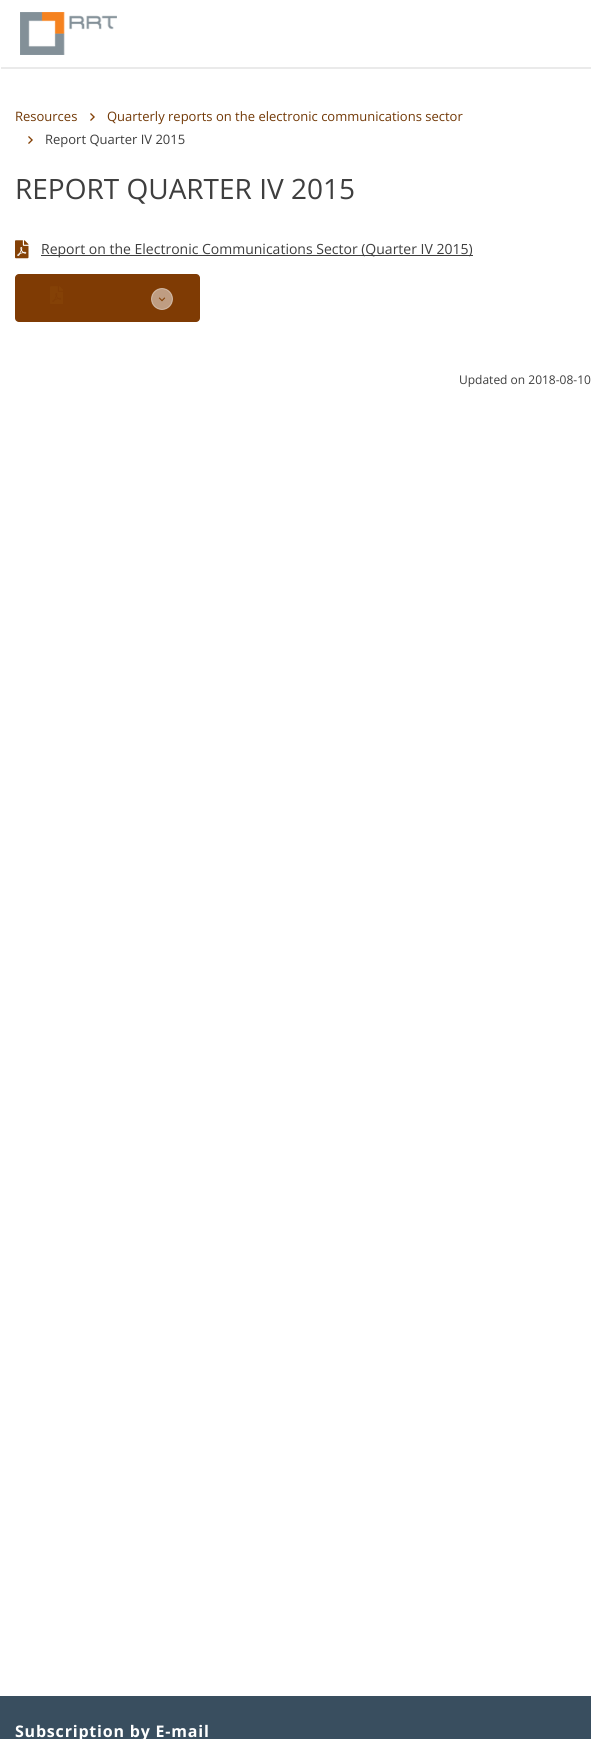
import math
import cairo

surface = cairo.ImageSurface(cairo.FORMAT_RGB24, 591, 1739)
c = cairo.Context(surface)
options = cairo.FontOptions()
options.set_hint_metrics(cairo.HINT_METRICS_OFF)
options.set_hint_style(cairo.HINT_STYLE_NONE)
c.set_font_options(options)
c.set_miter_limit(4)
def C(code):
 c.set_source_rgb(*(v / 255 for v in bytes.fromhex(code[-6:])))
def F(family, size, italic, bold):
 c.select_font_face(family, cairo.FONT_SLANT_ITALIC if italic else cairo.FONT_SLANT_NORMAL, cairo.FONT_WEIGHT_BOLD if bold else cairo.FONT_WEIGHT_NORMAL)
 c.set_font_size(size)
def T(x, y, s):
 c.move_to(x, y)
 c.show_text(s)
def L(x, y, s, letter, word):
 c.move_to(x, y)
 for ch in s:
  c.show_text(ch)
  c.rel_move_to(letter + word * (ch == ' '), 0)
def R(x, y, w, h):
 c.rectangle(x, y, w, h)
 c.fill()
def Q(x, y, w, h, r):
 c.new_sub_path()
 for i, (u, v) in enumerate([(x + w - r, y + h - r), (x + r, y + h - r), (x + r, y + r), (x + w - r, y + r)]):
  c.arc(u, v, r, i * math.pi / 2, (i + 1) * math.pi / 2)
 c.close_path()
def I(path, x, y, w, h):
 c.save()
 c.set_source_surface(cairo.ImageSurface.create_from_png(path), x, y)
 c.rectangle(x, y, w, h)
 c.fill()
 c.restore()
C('394e5f')
c.paint()
C('ffffff')
R(0,0,591,1696)
C('eaeaea')
c.new_path()
c.move_to(1,67)
c.line_to(1,69)
c.line_to(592,69)
c.line_to(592,2)
c.line_to(591,2)
c.line_to(591,67)
c.close_path()
c.fill()
I('1.png',20,12,97,43)
F('Open Sans',13,0,0)
C('723907')
T(15,121,'Resources')
I('2.png',90,113,5,8)
T(107,121,'Quarterly reports on the electronic communications sector')
I('2.png',28,136,5,8)
C('3e3e3e')
T(45,144,'Report Quarter IV 2015')
F('Open Sans',28,0,0)
T(15,199,'REPORT QUARTER IV 2015')
I('3.png',15,240,14,19)
R(41,255,432,1)
F('Open Sans',14,0,0)
T(41,254,'Report on the Electronic Communications Sector (Quarter IV 2015)')
C('7f3b04')
Q(15,274,185,48,4)
c.fill()
I('4.png',50,286,13,18)
I('5.png',151,288,22,22)
F('Open Sans',12,0,0)
C('3e3e3e')
T(459,384,'Updated on 2018-08-10')
F('Open Sans',16,0,1)
C('ffffff')
L(15,1737,'Subscription by E-mail',.8,0)
surface.write_to_png('o.png')
